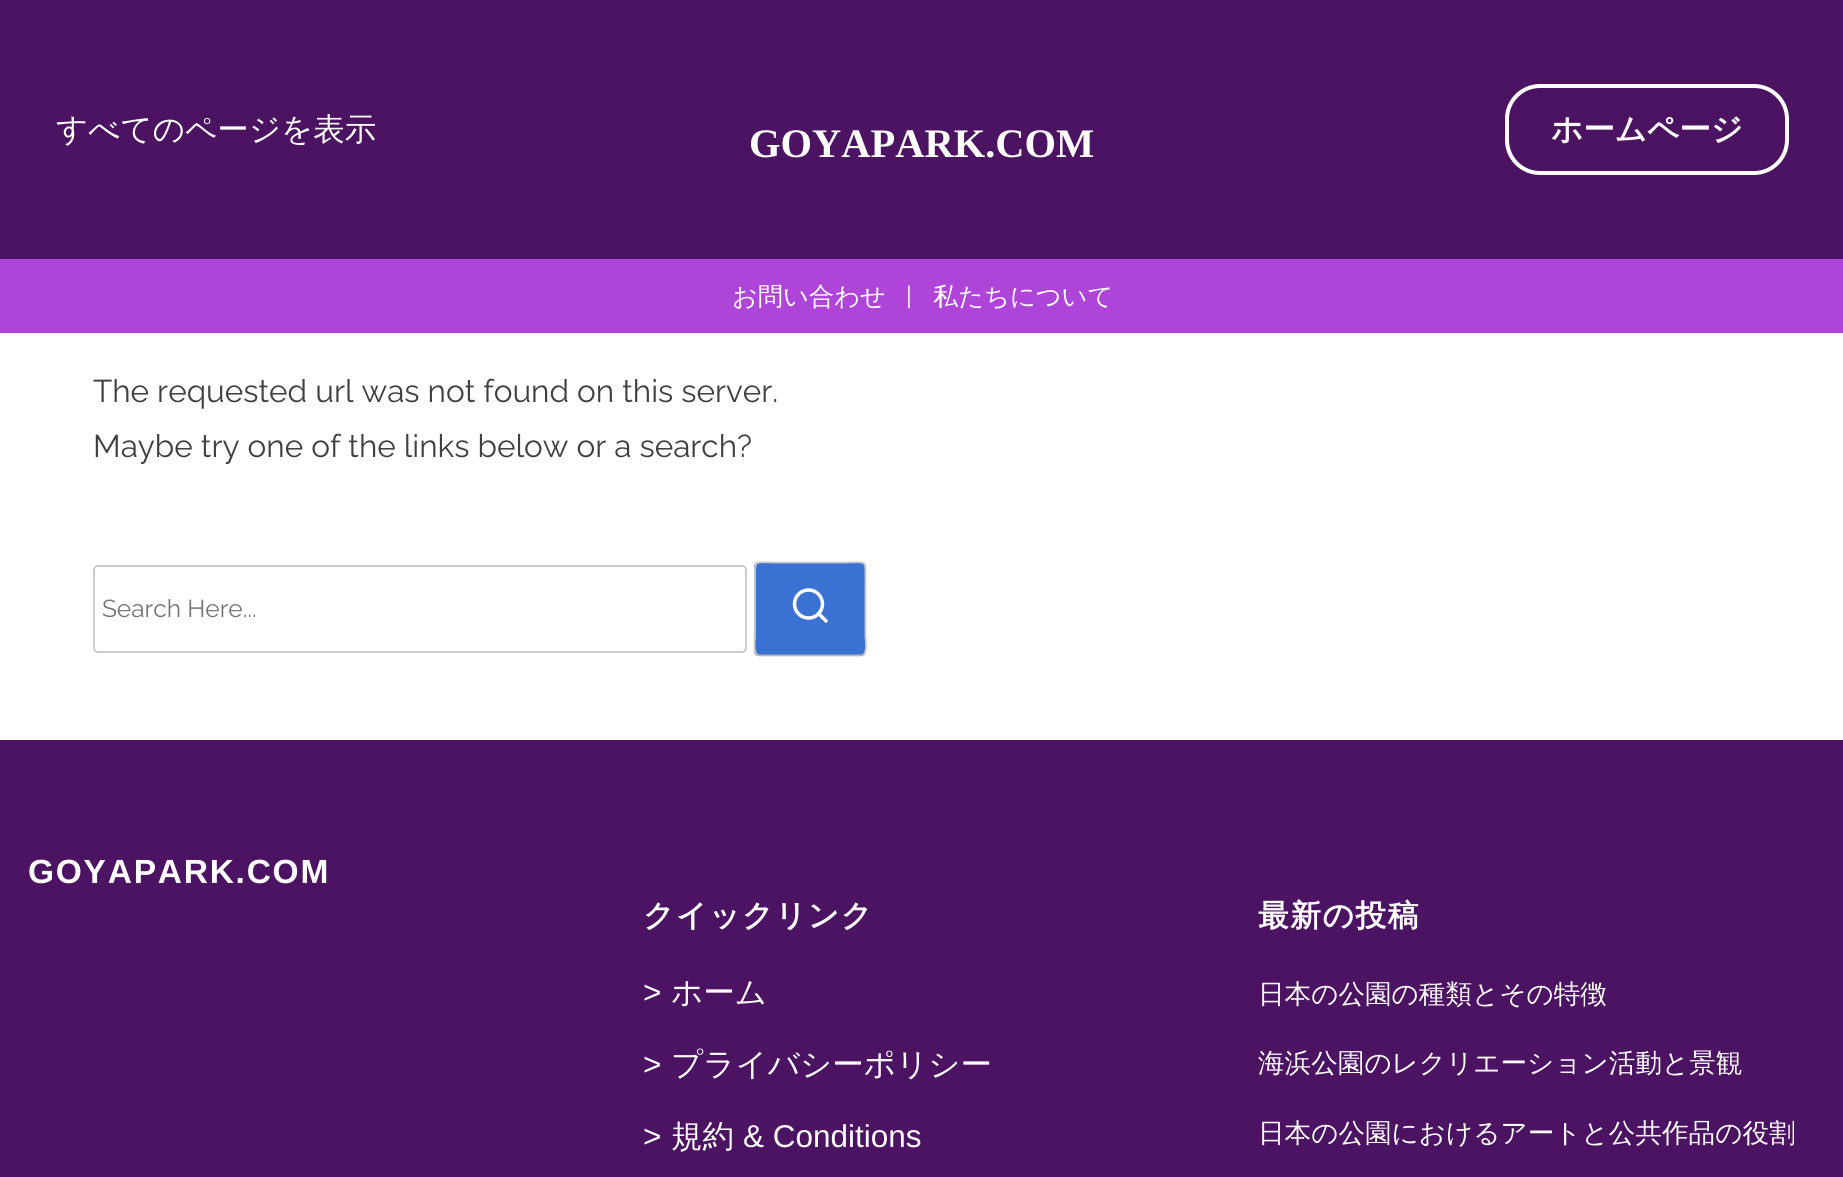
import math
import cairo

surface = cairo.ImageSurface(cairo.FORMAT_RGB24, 1843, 1177)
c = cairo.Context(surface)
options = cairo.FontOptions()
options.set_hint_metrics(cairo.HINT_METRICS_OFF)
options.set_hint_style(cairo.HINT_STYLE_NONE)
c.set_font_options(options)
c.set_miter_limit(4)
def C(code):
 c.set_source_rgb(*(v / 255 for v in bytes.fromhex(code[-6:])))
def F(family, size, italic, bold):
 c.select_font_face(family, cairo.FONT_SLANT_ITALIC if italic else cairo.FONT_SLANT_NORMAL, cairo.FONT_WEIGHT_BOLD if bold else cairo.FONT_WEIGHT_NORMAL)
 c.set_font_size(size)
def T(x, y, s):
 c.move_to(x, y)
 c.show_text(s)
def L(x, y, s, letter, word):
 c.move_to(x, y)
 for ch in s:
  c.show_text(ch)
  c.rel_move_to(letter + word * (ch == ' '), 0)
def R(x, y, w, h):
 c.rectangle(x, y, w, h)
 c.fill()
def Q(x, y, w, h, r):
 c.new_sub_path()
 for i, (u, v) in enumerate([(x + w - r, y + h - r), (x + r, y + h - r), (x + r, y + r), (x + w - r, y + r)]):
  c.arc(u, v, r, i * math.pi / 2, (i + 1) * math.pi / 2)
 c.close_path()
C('ffffff')
c.paint()
C('4b1361')
R(0,0,1843,259)
C('ae44d8')
R(0,259,1843,74)
F('WenQuanYi Zen Hei Medium',31.5,0,0)
C('ffffff')
T(56,140,'すべてのページを表示')
F('Liberation Serif',40.5,0,1)
T(749,157,'GOYAPARK.COM')
Q(1507,86,280,87,33)
c.set_line_width(4)
c.stroke()
F('WenQuanYi Zen Hei',31.5,0,1)
T(1551,140,'ホームページ')
F('WenQuanYi Zen Hei Medium',25.25,0,0)
T(732,305,'お問い合わせ')
F('Raleway',25.25,0,0)
T(906,305,'|')
F('WenQuanYi Zen Hei Medium',25.25,0,0)
T(933,305,'私たちについて')
F('Raleway',31.5,0,0)
C('404040')
T(93,402,'The requested url was not found on this server.')
T(93,457,'Maybe try one of the links below or a search?')
Q(94,566,652,86,4)
C('cccccc')
c.set_line_width(2)
c.stroke()
F('Raleway',24.5,0,0)
C('757575')
T(102,617,'Search Here...')
C('3a72d3')
Q(754,562,112,94,5)
c.fill()
c.new_path()
c.move_to(864,654)
c.line_to(861.5,655.5)
c.line_to(759,655.5)
c.line_to(756.5,654)
C('bbbbbb')
c.set_line_width(1.8)
c.stroke()
c.new_path()
c.move_to(756.5,654)
c.curve_to(753,650.5,755,637.5,755,637)
c.line_to(755,581)
c.curve_to(755,558.5,753,562.5,776.5,562.5)
c.line_to(844,562.5)
c.curve_to(867.5,562.5,865.5,558.5,865.5,581)
c.line_to(865.5,637)
c.curve_to(865.5,637.5,867.5,650.5,864,654)
C('cccccc')
c.stroke()
c.arc(808.5,604,14,0,2 * math.pi)
C('ffffff')
c.set_line_width(3.5)
c.stroke()
c.new_path()
c.move_to(826,621)
c.line_to(818.5,613.5)
c.set_line_cap(cairo.LINE_CAP_ROUND)
c.set_line_join(cairo.LINE_JOIN_ROUND)
c.stroke()
C('4b1361')
R(0,740,1843,437)
F('Liberation Sans',33.5,0,1)
C('ffffff')
L(28,883,'GOYAPARK.COM',1.75,0)
F('WenQuanYi Zen Hei',30.75,0,1)
L(643,926,'クイックリンク',1.5,0)
F('Liberation Sans',31.5,0,0)
T(643,1003,'>')
F('WenQuanYi Zen Hei Medium',31.5,0,0)
T(671,1003,'ホーム')
F('Liberation Sans',31.5,0,0)
T(643,1075,'>')
F('WenQuanYi Zen Hei Medium',31.5,0,0)
T(671,1075,'プライバシーポリシー')
F('Liberation Sans',31.5,0,0)
T(643,1147,'>')
F('WenQuanYi Zen Hei Medium',31.5,0,0)
T(671,1147,'規約')
F('Liberation Sans',31.5,0,0)
T(743,1147,'& Conditions')
F('WenQuanYi Zen Hei',30.75,0,1)
L(1258,926,'最新の投稿',1.5,0)
F('WenQuanYi Zen Hei Medium',26.6,0,0)
T(1258,1003,'日本の公園の種類とその特徴')
T(1258,1072,'海浜公園のレクリエーション活動と景観')
T(1258,1142,'日本の公園におけるアートと公共作品の役割')
surface.write_to_png('o.png')
